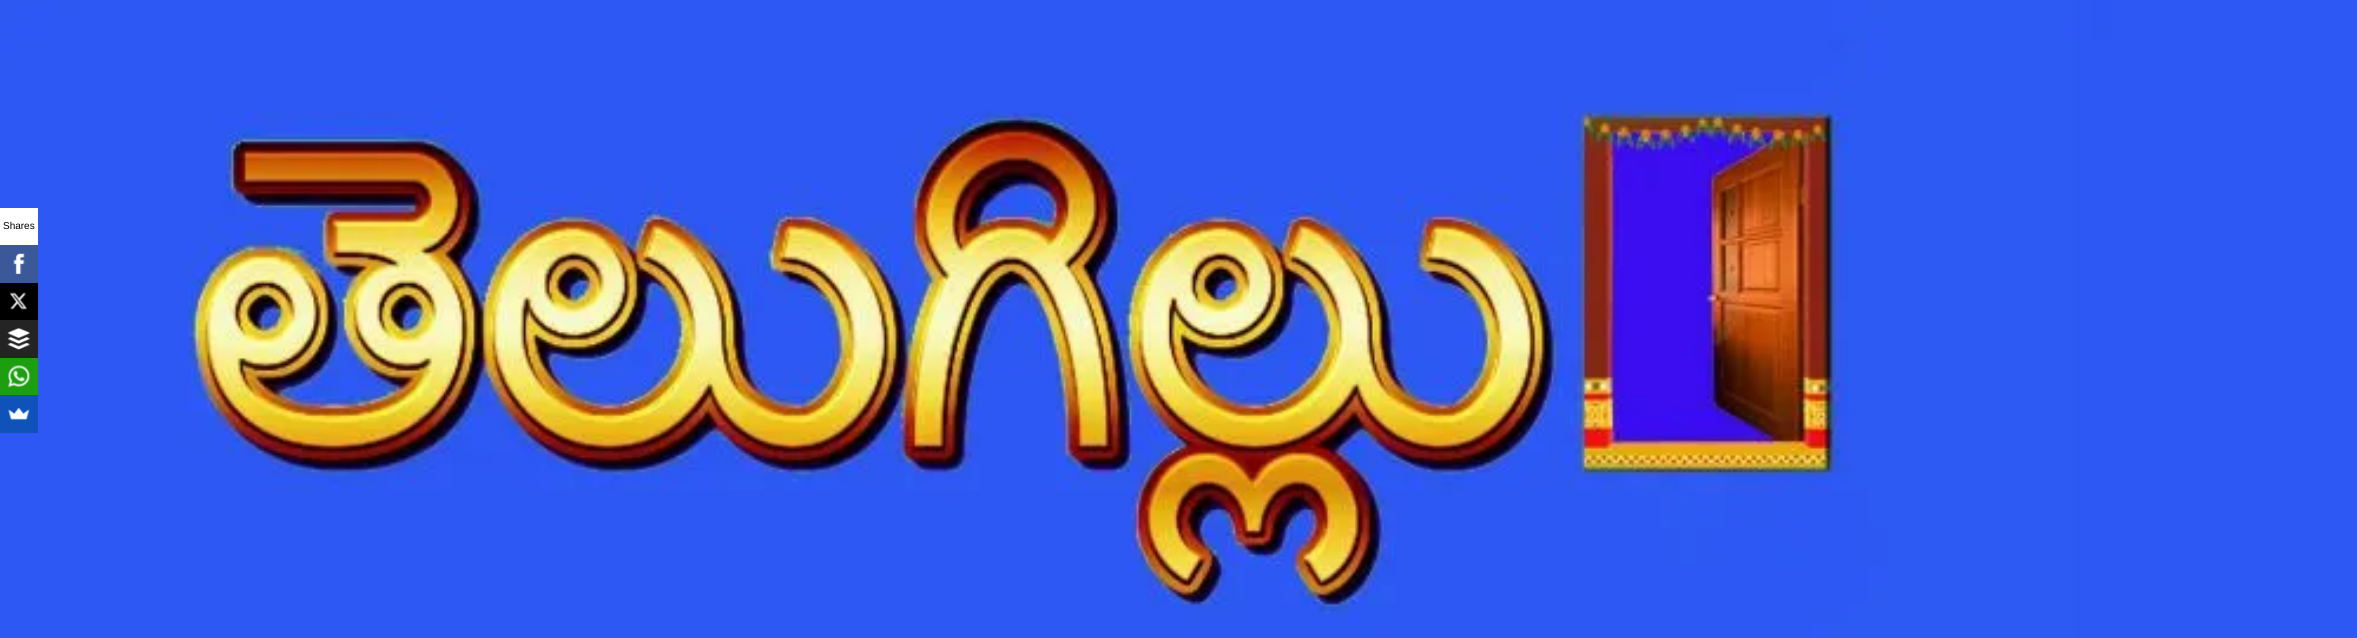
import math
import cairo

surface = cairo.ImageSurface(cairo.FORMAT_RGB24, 2357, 638)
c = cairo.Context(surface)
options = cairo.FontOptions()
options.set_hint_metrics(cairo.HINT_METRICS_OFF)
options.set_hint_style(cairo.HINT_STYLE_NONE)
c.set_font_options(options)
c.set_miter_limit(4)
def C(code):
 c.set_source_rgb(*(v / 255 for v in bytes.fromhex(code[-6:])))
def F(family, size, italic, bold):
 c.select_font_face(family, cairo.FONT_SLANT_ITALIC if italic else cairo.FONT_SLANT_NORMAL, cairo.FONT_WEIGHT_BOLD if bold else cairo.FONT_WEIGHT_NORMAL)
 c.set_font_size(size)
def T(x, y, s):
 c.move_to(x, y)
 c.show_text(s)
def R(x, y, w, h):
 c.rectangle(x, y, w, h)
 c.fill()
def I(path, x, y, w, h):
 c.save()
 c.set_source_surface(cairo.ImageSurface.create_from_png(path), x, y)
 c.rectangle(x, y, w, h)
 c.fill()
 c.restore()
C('ffffff')
c.paint()
I('1.png',0,0,2357,638)
C('ffffff')
R(0,208,38,37)
F('Liberation Sans',10,0,0)
C('000000')
T(3,229,'Shares')
C('3b5998')
R(0,245,38,38)
I('2.png',13,253,12,21)
C('000000')
R(0,283,38,37)
I('3.png',9,292,19,18)
C('242424')
R(0,320,38,38)
I('4.png',7,328,24,22)
C('1d9e11')
R(0,358,38,37)
I('5.png',7,365,24,23)
C('0f52ba')
R(0,395,38,38)
I('6.png',8,408,22,12)
surface.write_to_png('o.png')
